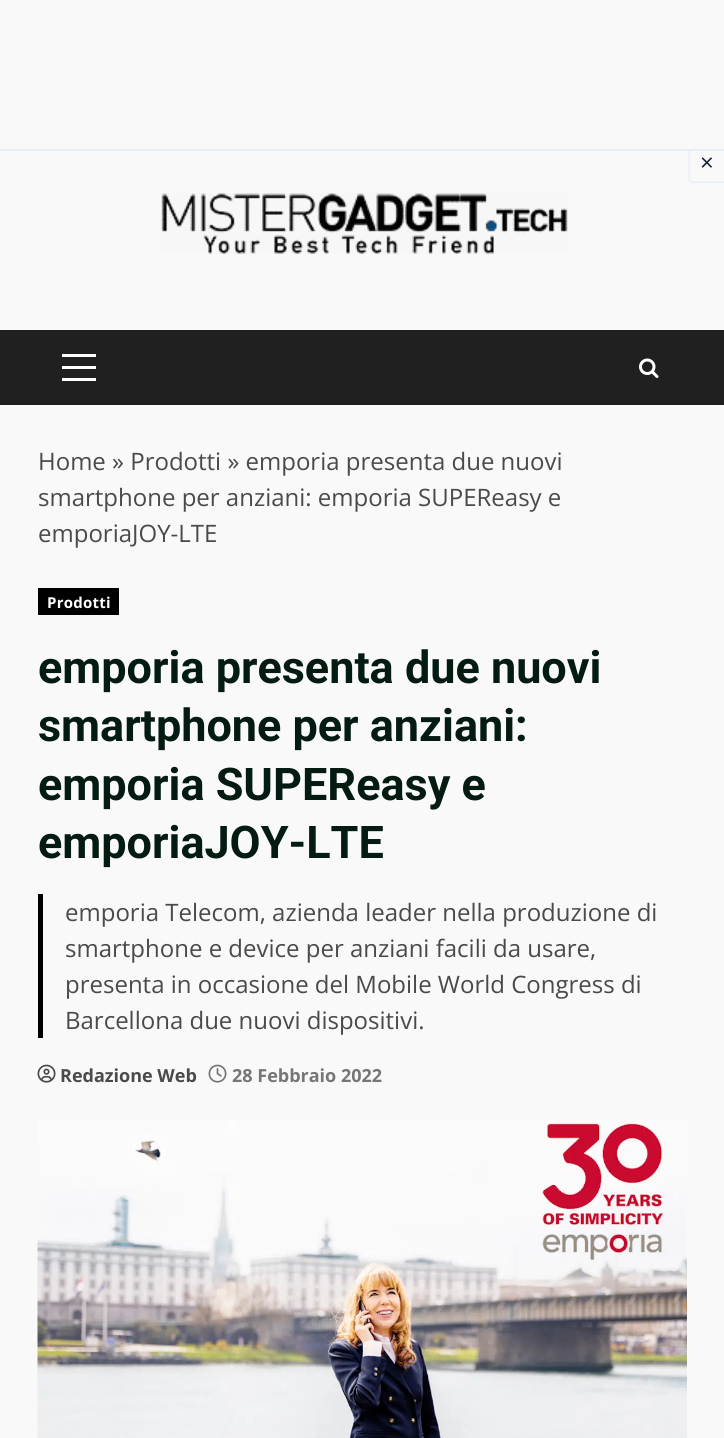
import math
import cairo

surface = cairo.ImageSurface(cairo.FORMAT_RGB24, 724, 1438)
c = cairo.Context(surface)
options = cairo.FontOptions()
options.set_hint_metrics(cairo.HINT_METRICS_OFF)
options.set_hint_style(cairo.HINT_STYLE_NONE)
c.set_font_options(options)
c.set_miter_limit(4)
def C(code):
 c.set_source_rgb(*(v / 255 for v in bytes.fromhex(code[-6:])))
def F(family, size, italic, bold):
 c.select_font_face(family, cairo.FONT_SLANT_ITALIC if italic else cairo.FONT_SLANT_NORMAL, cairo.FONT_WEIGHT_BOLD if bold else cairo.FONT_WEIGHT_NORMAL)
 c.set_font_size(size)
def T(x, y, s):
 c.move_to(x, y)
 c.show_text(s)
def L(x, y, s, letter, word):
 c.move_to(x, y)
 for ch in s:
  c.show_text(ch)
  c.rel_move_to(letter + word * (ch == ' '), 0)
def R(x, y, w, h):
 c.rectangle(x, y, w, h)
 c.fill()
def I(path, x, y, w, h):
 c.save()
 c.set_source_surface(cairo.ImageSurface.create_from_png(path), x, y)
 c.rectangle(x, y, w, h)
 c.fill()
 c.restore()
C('f9f9f9')
c.paint()
C('e8eef9')
c.set_fill_rule(cairo.FILL_RULE_EVEN_ODD)
c.new_path()
c.move_to(688.5,147)
c.line_to(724.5,147)
c.line_to(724.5,183)
c.line_to(693,183)
c.curve_to(690.5,183,688.5,181,688.5,178.5)
c.close_path()
c.move_to(690,147)
c.line_to(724.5,147)
c.line_to(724.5,181.5)
c.line_to(693,181.5)
c.curve_to(691.5,181.5,690,180,690,178.5)
c.close_path()
c.fill()
C('fafafa')
R(688,147,2,2)
C('e8eef9')
R(0,149,724,2)
F('Open Sans',24,0,0)
C('112233')
T(700,171,'×')
I('1.png',161,193,407,61)
C('202020')
R(0,330,724,75)
C('ffffff')
R(62,366,34,3)
R(62,354,34,3)
R(62,378,34,3)
I('2.png',639,358,20,20)
C('4a4a4a')
T(38,470,'Home » Prodotti » emporia presenta due nuovi')
T(38,506,'smartphone per anziani: emporia SUPEReasy e')
T(38,542,'emporiaJOY-LTE')
C('000000')
R(38,588,81,27)
F('Open Sans',15,0,1)
C('ffffff')
L(47,608,'Prodotti',.25,0)
F('Roboto',45,0,1)
C('031b11')
T(38,683,'emporia presenta due nuovi')
T(38,741,'smartphone per anziani:')
T(38,800,'emporia SUPEReasy e')
T(38,858,'emporiaJOY-LTE')
C('000000')
R(38,894,5,144)
F('Open Sans',24,0,0)
C('4a4a4a')
T(65,921,'emporia Telecom, azienda leader nella produzione di')
T(65,957,'smartphone e device per anziani facili da usare,')
T(65,993,'presenta in occasione del Mobile World Congress di')
T(65,1029,'Barcellona due nuovi dispositivi.')
I('3.png',37,1064,19,19)
F('Open Sans',18,0,1)
T(60,1082,'Redazione Web')
I('4.png',208,1064,19,19)
C('767676')
T(232,1082,'28 Febbraio 2022')
I('5.png',37,1120,650,318)
surface.write_to_png('o.png')
